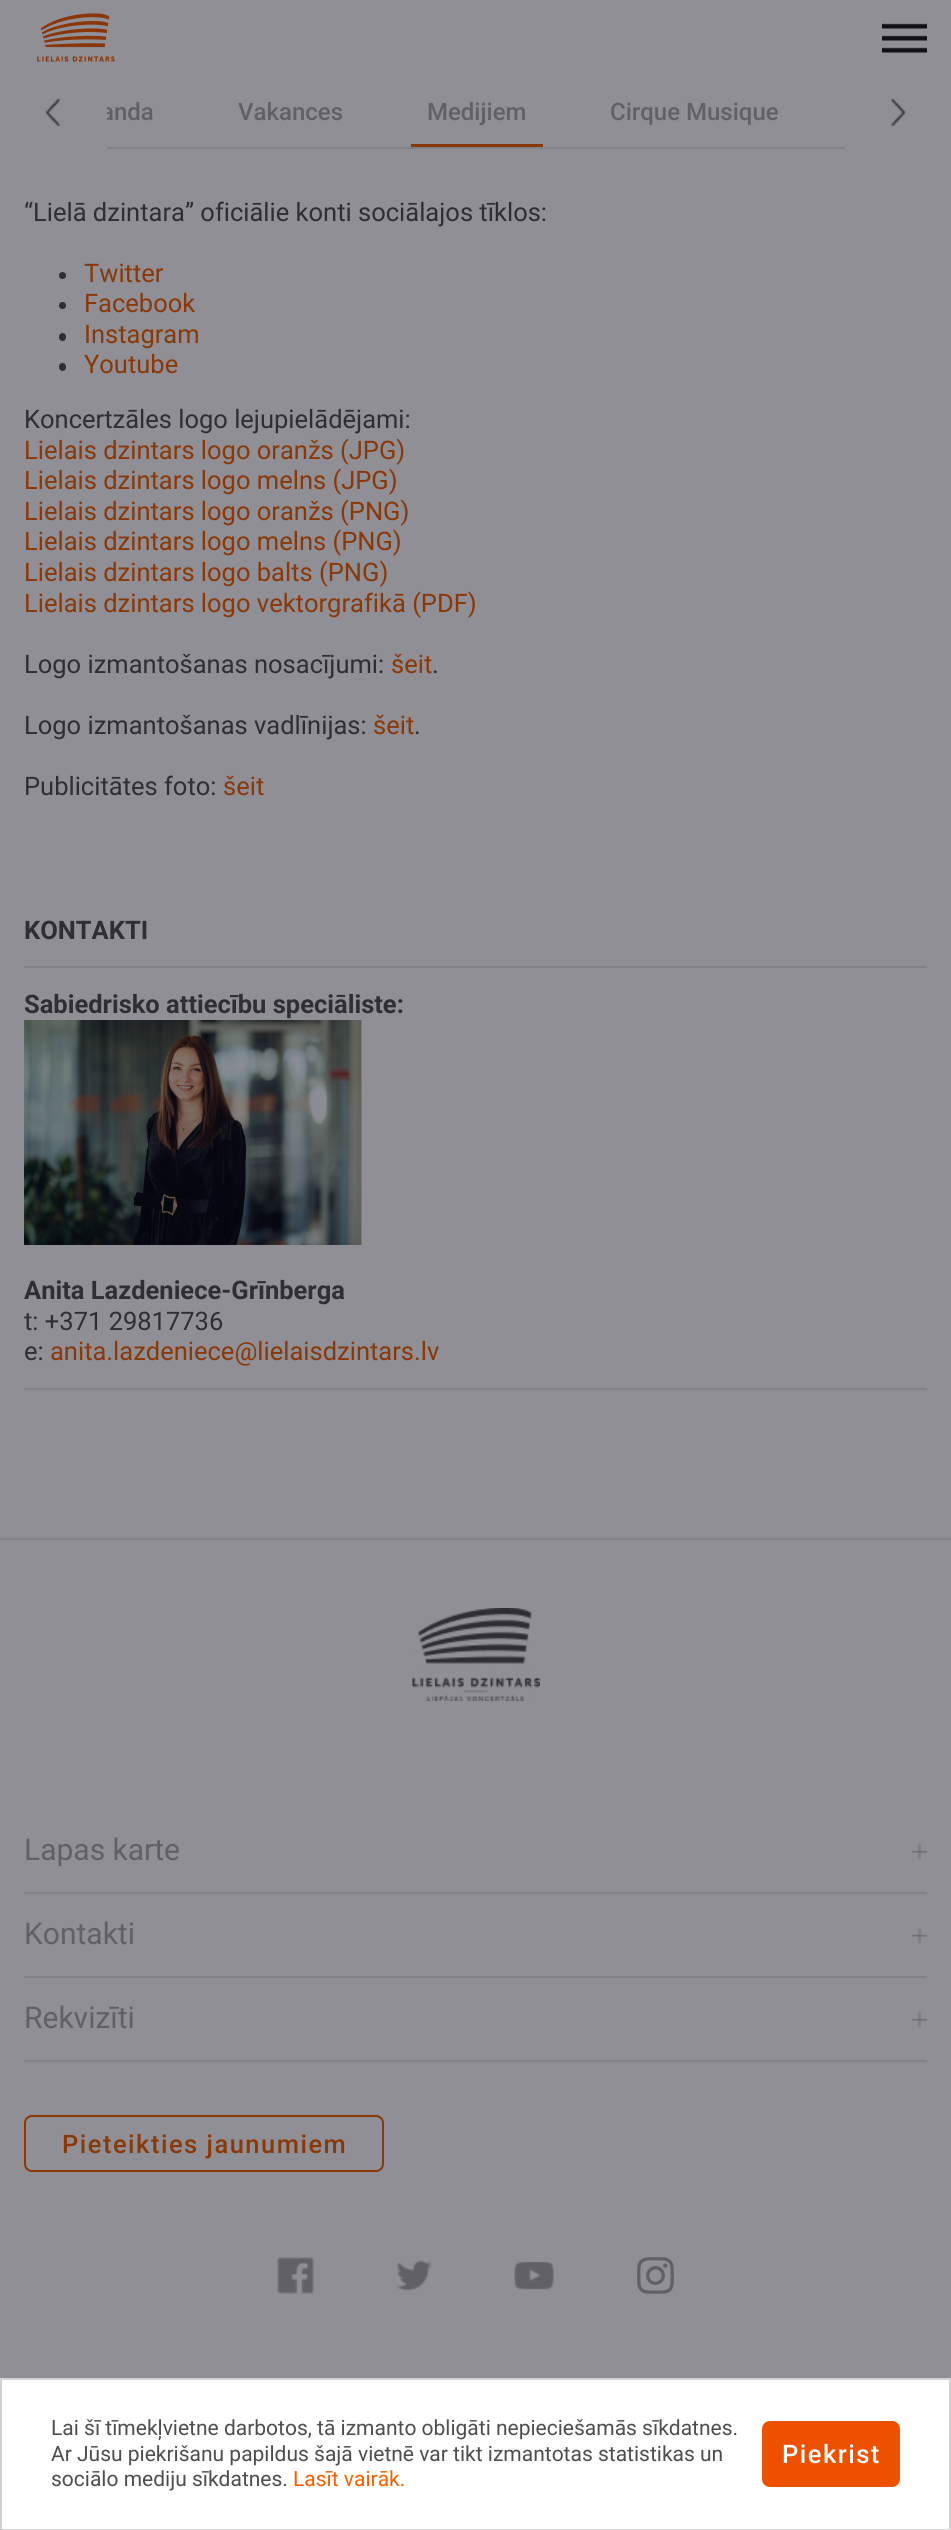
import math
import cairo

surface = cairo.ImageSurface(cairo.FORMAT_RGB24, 951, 2530)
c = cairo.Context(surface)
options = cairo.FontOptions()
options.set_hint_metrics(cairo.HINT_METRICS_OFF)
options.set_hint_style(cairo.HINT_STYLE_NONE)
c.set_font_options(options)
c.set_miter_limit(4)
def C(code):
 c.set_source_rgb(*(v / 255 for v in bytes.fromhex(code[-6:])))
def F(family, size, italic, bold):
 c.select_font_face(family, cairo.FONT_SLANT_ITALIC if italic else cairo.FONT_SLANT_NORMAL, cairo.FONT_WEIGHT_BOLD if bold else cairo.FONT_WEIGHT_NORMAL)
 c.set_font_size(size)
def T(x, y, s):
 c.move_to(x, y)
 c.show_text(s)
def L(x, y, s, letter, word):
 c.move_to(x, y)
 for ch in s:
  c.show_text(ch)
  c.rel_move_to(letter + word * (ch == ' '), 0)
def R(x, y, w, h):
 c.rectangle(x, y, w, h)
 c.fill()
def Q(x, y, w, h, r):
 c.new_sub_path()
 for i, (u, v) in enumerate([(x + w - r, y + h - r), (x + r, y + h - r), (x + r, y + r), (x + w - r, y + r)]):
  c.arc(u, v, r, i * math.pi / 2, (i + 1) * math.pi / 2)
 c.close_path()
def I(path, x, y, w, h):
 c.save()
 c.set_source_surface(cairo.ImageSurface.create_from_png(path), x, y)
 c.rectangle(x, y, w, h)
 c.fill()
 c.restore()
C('8f8f95')
c.paint()
I('1.png',37,13,78,49)
I('2.png',882,23,45,30)
I('3.png',45,99,15,27)
c.save()
c.rectangle(107,98,738,49)
c.clip()
F('Roboto Medium',24,0,0)
C('606066')
T(101,120,'anda')
c.restore()
F('Roboto Medium',24,0,0)
C('606066')
T(238,120,'Vakances')
T(427,120,'Medijiem')
C('893809')
R(411,144,132,3)
C('606066')
T(610,120,'Cirque Musique')
I('4.png',891,99,15,27)
C('818187')
R(107,147,738,2)
F('Roboto',25.5,0,0)
C('2e2e33')
T(24,221,'“Lielā dzintara” oficiālie konti sociālajos tīklos:')
c.new_path()
c.arc(62.5,275.5,3.5,0,2 * math.pi)
c.fill()
C('893809')
T(84,282,'Twitter')
C('2e2e33')
c.new_path()
c.arc(62.5,305.5,3.5,0,2 * math.pi)
c.fill()
C('893809')
T(84,312,'Facebook')
C('2e2e33')
Q(59,333,7,8,3.5)
c.fill()
C('893809')
T(84,343,'Instagram')
C('2e2e33')
Q(59,363,7,8,3.5)
c.fill()
C('893809')
T(84,373,'Youtube')
C('2e2e33')
T(24,428,'Koncertzāles logo lejupielādējami:')
C('893809')
T(24,459,'Lielais dzintars logo oranžs (JPG)')
T(24,489,'Lielais dzintars logo melns (JPG)')
T(24,520,'Lielais dzintars logo oranžs (PNG)')
T(24,550,'Lielais dzintars logo melns (PNG)')
T(24,581,'Lielais dzintars logo balts (PNG)')
T(24,612,'Lielais dzintars logo vektorgrafikā (PDF)')
C('2e2e33')
T(24,673,'Logo izmantošanas nosacījumi:')
C('893809')
T(391,673,'šeit')
C('2e2e33')
T(432,673,'.')
T(24,734,'Logo izmantošanas vadlīnijas:')
C('893809')
T(373,734,'šeit')
C('2e2e33')
T(414,734,'.')
T(24,795,'Publicitātes foto:')
C('893809')
T(223,795,'šeit')
F('Roboto',25.5,0,1)
C('2e2e33')
T(24,939,'KONTAKTI')
C('818187')
R(24,966,903,2)
C('2e2e33')
T(24,1013,'Sabiedrisko attiecību speciāliste:')
I('5.png',24,1020,338,225)
T(24,1299,'Anita Lazdeniece-Grīnberga')
F('Roboto',25.5,0,0)
T(24,1330,'t: +371 29817736')
T(24,1360,'e:')
C('893809')
T(50,1360,'anita.lazdeniece@lielaisdzintars.lv')
C('818187')
R(24,1388,903,2)
R(0,1538,951,2)
I('6.png',412,1608,128,93)
F('Roboto',30,0,0)
C('606066')
T(24,1860,'Lapas karte')
I('7.png',912,1843,15,17)
C('818187')
R(24,1892,903,2)
C('606066')
T(24,1944,'Kontakti')
I('7.png',912,1927,15,17)
C('818187')
R(24,1976,903,2)
C('606066')
T(24,2028,'Rekvizīti')
I('7.png',912,2011,15,17)
C('818187')
R(24,2060,903,2)
Q(25,2116,358,55,7)
C('893809')
c.stroke()
F('Roboto Medium',25.5,0,0)
L(62,2153,'Pieteikties jaunumiem',1.5,0)
I('8.png',277,2257,37,37)
I('9.png',396,2260,36,31)
I('10.png',514,2261,40,29)
I('11.png',637,2257,37,37)
C('ffffff')
c.rectangle(1,2379,949,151)
c.fill_preserve()
C('d2d2d2')
c.stroke()
F('Roboto',21,0,0)
C('4e4e4e')
T(51,2435,'Lai šī tīmekļvietne darbotos, tā izmanto obligāti nepieciešamās sīkdatnes.')
T(51,2461,'Ar Jūsu piekrišanu papildus šajā vietnē var tikt izmantotas statistikas un')
T(51,2486,'sociālo mediju sīkdatnes.')
C('f46000')
T(293,2486,'Lasīt vairāk.')
C('ed5100')
Q(763,2422,136,64,7)
c.fill_preserve()
c.stroke()
F('Roboto Medium',25.5,0,0)
C('ffffff')
L(782,2463,'Piekrist',1.5,0)
surface.write_to_png('o.png')
